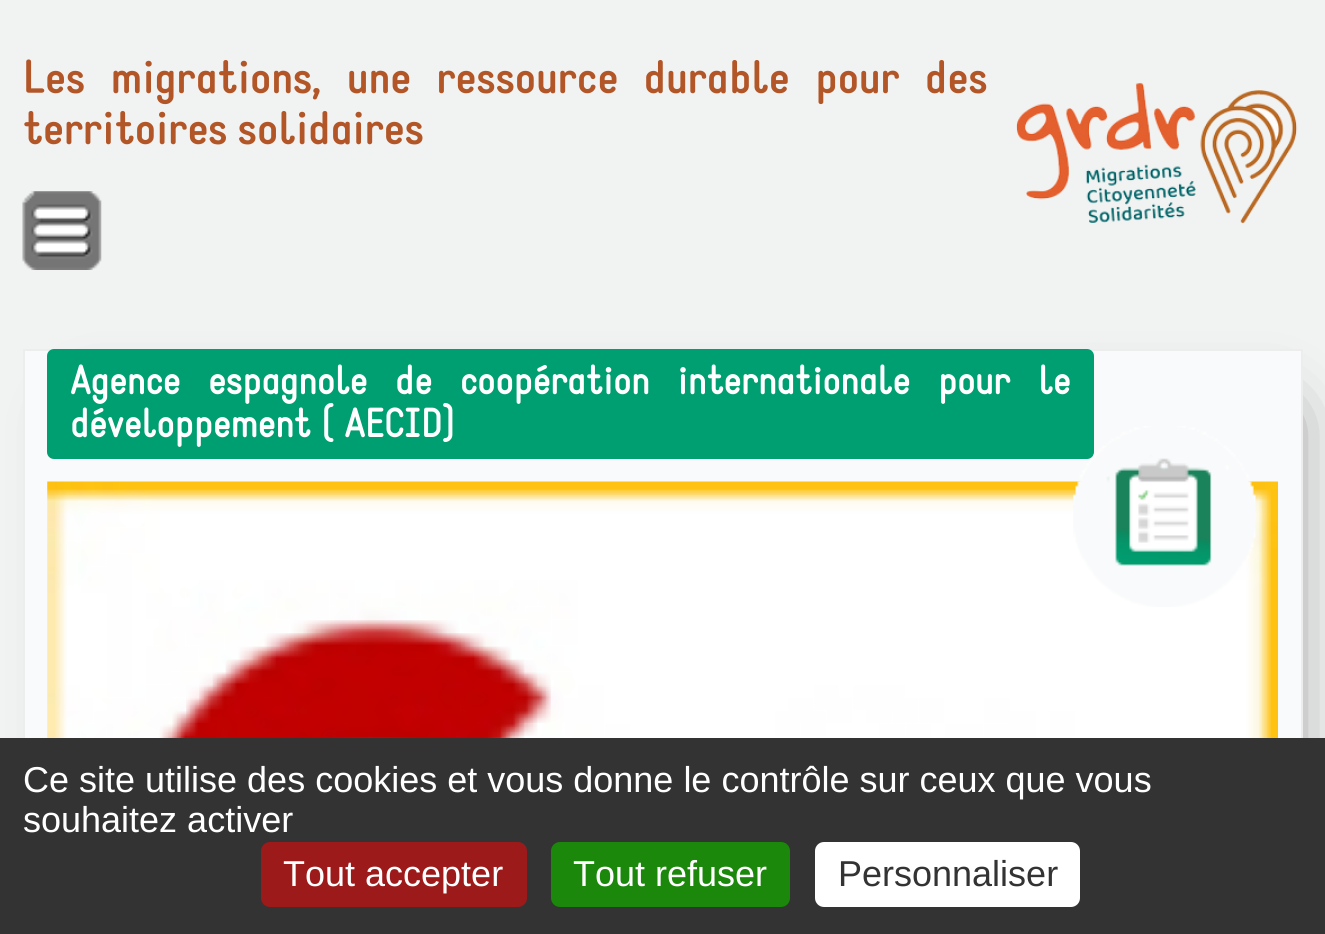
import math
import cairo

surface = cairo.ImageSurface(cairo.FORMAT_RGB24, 1325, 934)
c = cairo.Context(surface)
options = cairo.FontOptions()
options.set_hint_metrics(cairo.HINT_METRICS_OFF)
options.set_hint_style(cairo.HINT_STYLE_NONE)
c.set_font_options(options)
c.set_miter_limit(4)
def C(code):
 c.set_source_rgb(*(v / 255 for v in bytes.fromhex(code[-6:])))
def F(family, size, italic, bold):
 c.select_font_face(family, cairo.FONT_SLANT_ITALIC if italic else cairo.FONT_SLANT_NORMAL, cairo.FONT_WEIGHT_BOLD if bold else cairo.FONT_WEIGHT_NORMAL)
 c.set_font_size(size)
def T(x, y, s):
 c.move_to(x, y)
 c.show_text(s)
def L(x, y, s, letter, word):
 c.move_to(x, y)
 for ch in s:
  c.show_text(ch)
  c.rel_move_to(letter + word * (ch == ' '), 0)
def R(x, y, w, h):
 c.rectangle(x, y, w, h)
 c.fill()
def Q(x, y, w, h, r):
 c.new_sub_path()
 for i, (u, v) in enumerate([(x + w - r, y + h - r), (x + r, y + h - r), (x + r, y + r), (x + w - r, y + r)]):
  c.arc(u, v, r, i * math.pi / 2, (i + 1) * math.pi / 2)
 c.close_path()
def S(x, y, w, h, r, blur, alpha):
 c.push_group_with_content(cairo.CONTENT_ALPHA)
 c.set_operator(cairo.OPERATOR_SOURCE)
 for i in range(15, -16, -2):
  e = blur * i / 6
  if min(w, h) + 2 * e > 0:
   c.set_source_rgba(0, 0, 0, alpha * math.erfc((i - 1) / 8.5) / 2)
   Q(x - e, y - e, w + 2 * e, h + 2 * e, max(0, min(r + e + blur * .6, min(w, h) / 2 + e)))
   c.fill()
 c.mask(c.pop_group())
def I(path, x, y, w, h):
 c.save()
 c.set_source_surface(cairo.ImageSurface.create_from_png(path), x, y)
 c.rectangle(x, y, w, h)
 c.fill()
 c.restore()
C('f1f2f2')
c.paint()
F('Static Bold',46.8,0,1)
C('b25627')
L(23,93,'Les migrations, une ressource durable pour des',0,15)
T(23,144,'territoires solidaires')
I('1.png',1016,82,282,142)
I('2.png',22,191,80,79)
C('656565')
S(90,416,1190,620,0,34,1)
C('f9fafb')
R(25,351,1276,387)
c.rectangle(24,350,1278,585)
C('ededed')
c.stroke()
C('009f71')
Q(47,349,1047,110,7)
c.fill()
F('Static',39.6,0,1)
C('ffffff')
L(70,394,'Agence espagnole de coopération internationale pour le',0,17.25)
T(70,437,'développement ( AECID)')
I('4.png',47,481,1231,257)
I('3.png',1073,426,183,181)
C('333333')
R(0,738,1325,196)
F('Liberation Sans',36,0,0)
C('ffffff')
T(23,792,'Ce site utilise des cookies et vous donne le contrôle sur ceux que vous')
T(23,832,'souhaitez activer')
C('9c1a1a')
Q(261,842,266,65,9)
c.fill()
C('ffffff')
T(283,886,'Tout accepter')
C('1b870b')
Q(551,842,239,65,9)
c.fill()
C('ffffff')
T(573,886,'Tout refuser')
Q(815,842,265,65,9)
c.fill()
C('333333')
T(838,886,'Personnaliser')
surface.write_to_png('o.png')
